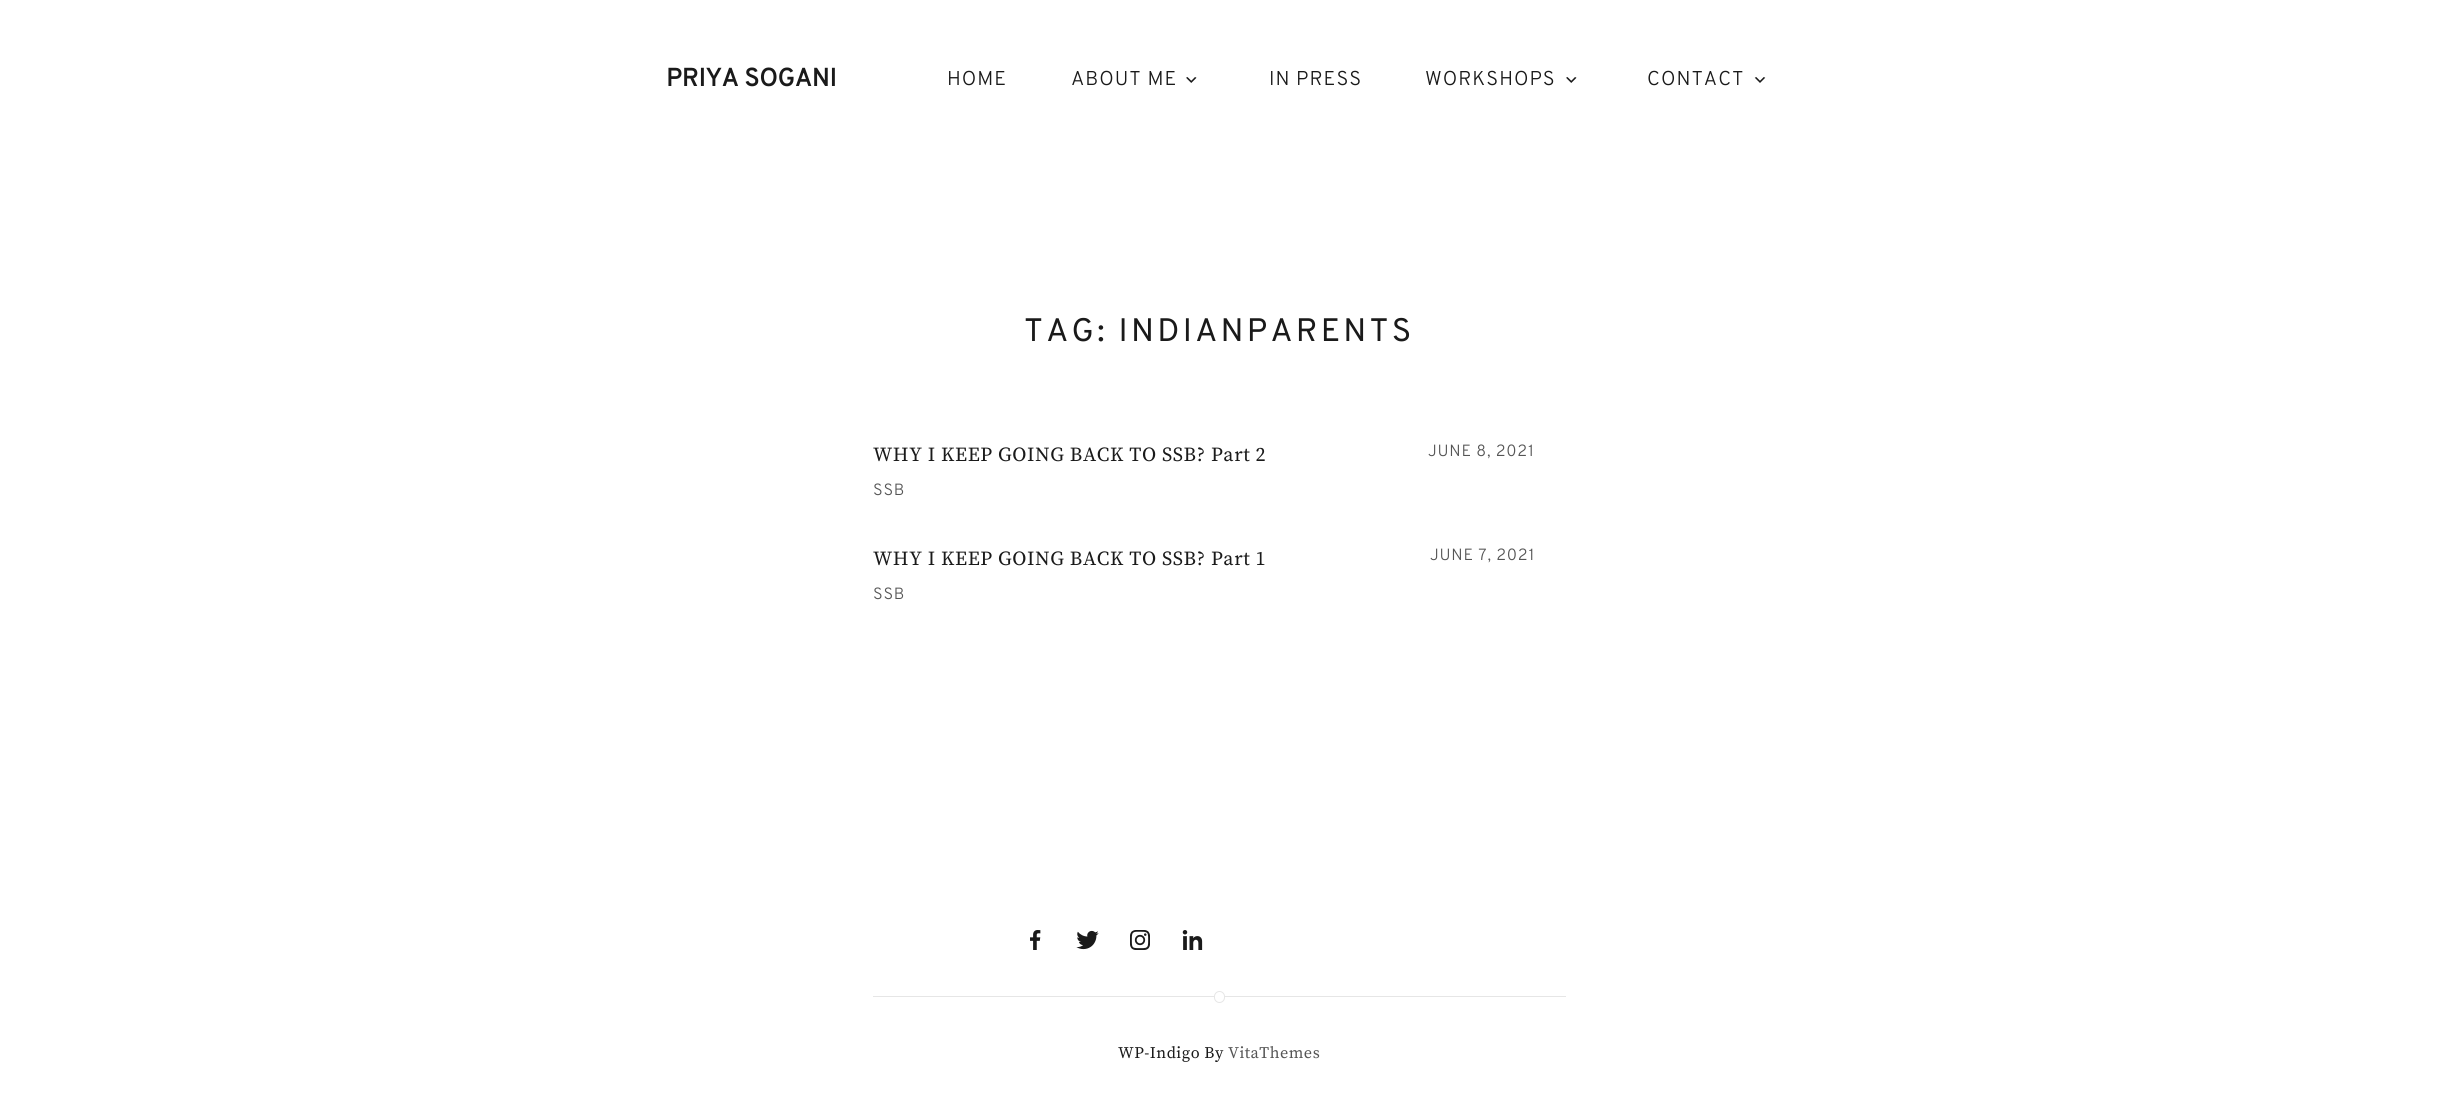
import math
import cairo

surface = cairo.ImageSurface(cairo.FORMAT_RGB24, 2438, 1116)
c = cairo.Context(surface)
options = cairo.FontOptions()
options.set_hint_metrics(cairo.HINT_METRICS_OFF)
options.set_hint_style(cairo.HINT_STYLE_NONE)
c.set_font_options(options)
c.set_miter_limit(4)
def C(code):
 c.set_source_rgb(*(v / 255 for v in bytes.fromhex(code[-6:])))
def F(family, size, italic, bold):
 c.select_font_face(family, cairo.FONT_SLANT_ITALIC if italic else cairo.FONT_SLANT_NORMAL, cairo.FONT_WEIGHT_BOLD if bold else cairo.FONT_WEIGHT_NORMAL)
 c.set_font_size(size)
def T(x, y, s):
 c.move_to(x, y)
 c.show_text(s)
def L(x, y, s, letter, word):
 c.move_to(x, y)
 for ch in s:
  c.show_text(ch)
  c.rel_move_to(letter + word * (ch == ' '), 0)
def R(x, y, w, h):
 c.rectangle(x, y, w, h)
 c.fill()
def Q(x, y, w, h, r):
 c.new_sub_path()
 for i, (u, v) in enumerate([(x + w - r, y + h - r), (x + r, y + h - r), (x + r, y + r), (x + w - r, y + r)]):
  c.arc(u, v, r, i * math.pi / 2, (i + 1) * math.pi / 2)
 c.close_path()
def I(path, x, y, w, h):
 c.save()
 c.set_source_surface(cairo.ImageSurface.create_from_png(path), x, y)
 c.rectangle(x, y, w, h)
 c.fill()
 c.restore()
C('ffffff')
c.paint()
F('Overpass',25,0,1)
C('1a1a1a')
T(666,86,'PRIYA SOGANI')
F('Overpass Light',20,0,0)
L(947,85,'HOME',1,0)
L(1071,85,'ABOUT ME',1,0)
I('1.png',1186,77,11,6)
L(1269,85,'IN PRESS',1,0)
L(1425,85,'WORKSHOPS',1,0)
I('1.png',1566,77,11,6)
L(1647,85,'CONTACT',1,0)
I('2.png',1754,77,12,6)
F('Overpass',32.5,0,0)
L(1024,341,'TAG: INDIANPARENTS',3.25,0)
F('Source Serif Pro',20,0,0)
L(873,461,'WHY I KEEP GOING BACK TO SSB? Part 2',.6,0)
F('Overpass Light',16.25,0,0)
C('555555')
L(1428,456,'JUNE 8, 2021',.75,0)
L(873,495,'SSB',.75,0)
F('Source Serif Pro',20,0,0)
C('1a1a1a')
L(873,565,'WHY I KEEP GOING BACK TO SSB? Part 1',.6,0)
F('Overpass Light',16.25,0,0)
C('555555')
L(1430,560,'JUNE 7, 2021',.75,0)
L(873,599,'SSB',.75,0)
I('3.png',1030,930,11,20)
I('4.png',1076,930,23,20)
I('5.png',1130,930,20,20)
I('6.png',1182,930,21,20)
C('e6e6e6')
R(873,996,693,1)
C('ffffff')
Q(1214.5,991.5,10,11,5)
c.fill_preserve()
C('e6e6e6')
c.set_line_width(1)
c.stroke()
F('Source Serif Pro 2',16.25,0,0)
C('1a1a1a')
L(1118,1058,'WP-Indigo By',.5,0)
C('555555')
L(1228,1058,'VitaThemes',.5,0)
surface.write_to_png('o.png')
